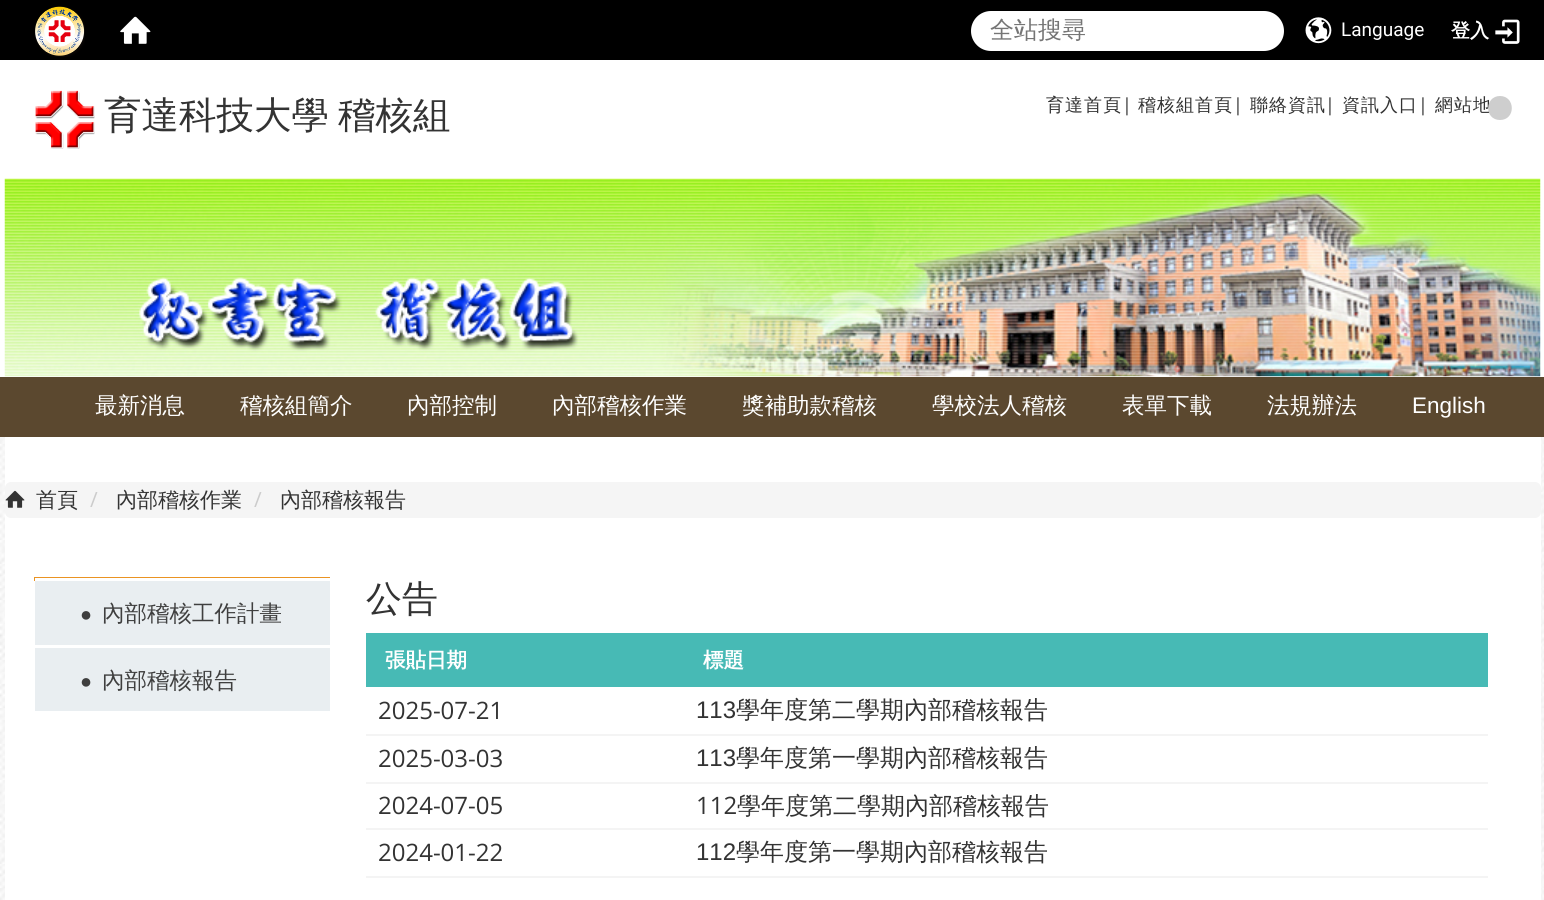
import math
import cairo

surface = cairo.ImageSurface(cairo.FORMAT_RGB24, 1544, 900)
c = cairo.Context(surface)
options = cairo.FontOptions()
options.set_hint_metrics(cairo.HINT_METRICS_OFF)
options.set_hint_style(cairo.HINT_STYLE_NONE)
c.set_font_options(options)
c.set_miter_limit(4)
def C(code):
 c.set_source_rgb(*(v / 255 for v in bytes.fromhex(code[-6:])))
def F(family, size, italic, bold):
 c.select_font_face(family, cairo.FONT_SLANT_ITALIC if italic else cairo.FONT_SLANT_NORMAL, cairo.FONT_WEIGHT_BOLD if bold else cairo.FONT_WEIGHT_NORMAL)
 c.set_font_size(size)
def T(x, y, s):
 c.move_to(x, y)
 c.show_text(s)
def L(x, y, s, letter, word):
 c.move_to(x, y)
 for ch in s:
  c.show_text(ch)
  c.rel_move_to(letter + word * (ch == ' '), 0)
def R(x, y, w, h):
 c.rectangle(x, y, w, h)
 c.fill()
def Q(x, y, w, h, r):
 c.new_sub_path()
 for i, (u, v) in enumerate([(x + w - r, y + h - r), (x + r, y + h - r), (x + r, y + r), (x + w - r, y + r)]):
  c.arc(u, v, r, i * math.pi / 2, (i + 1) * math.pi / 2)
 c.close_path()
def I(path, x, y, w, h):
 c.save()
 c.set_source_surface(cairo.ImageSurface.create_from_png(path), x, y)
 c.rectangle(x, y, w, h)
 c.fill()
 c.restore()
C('ffffff')
c.paint()
I('1.png',0,437,1544,463)
C('000000')
R(0,0,1544,60)
I('2.png',35,6,50,51)
I('3.png',120,16,31,28)
C('ffffff')
Q(971,11,313,40,20)
c.fill()
F('WenQuanYi Zen Hei Medium',24,0,0)
C('757575')
T(990,38,'全站搜尋')
I('4.png',1305,17,27,27)
F('Roboto',19,0,0)
C('ffffff')
T(1341,36,'Language')
F('WenQuanYi Zen Hei',19,0,1)
T(1451,37,'登入')
I('5.png',1495,19,25,25)
I('6.png',35,90,60,59)
F('WenQuanYi Zen Hei Medium',37.5,0,0)
C('333333')
T(104,128,'育達科技大學')
T(338,128,'稽核組')
F('WenQuanYi Zen Hei Medium',18,0,0)
L(1046,111,'育達首頁',1,0)
F('Open Sans',18,0,0)
L(1122,111,'|',1,0)
F('WenQuanYi Zen Hei Medium',18,0,0)
L(1138,111,'稽核組首頁',1,0)
F('Open Sans',18,0,0)
L(1233,111,'|',1,0)
F('WenQuanYi Zen Hei Medium',18,0,0)
L(1250,111,'聯絡資訊',1,0)
F('Open Sans',18,0,0)
L(1325,111,'|',1,0)
F('WenQuanYi Zen Hei Medium',18,0,0)
L(1342,111,'資訊入口',1,0)
F('Open Sans',18,0,0)
L(1418,111,'|',1,0)
F('WenQuanYi Zen Hei Medium',18,0,0)
L(1435,111,'網站地',1,0)
C('cecece')
c.new_path()
c.move_to(1500,120)
c.curve_to(1516,120,1515.5,96,1500,96)
c.curve_to(1484.5,96,1484,120,1500,120)
c.close_path()
c.fill()
I('7.png',4,178,1537,199)
C('5b482f')
R(0,377,1544,60)
F('WenQuanYi Zen Hei Medium',22.5,0,0)
C('ffffff')
T(95,413,'最新消息')
T(240,413,'稽核組簡介')
T(407,413,'內部控制')
T(552,413,'內部稽核作業')
T(742,413,'獎補助款稽核')
T(932,413,'學校法人稽核')
T(1122,413,'表單下載')
T(1267,413,'法規辦法')
F('Liberation Sans',22.5,0,0)
T(1412,413,'English')
R(5,437,1536,463)
C('f5f5f5')
Q(5,482,1536,36,6)
c.fill()
I('8.png',5,490,20,18)
F('WenQuanYi Zen Hei Medium',21,0,0)
C('333333')
T(36,507,'首頁')
F('Open Sans',21,0,0)
C('cccccc')
T(90,507,'/')
F('WenQuanYi Zen Hei Medium',21,0,0)
C('333333')
T(116,507,'內部稽核作業')
F('Open Sans',21,0,0)
C('cccccc')
T(254,507,'/')
F('WenQuanYi Zen Hei Medium',21,0,0)
C('333333')
T(280,507,'內部稽核報告')
C('ea9322')
R(34,577,296,4)
C('ffffff')
R(35,578,295,3)
C('e9eef1')
R(35,581,295,64)
F('Liberation Serif',20,0,0)
C('3f3f3f')
T(80,621,'●')
F('WenQuanYi Zen Hei Medium',22.5,0,0)
T(102,621,'內部稽核工作計畫')
C('e9eef1')
R(35,648,295,63)
F('Liberation Serif',20,0,0)
C('3f3f3f')
T(80,688,'●')
F('WenQuanYi Zen Hei Medium',22.5,0,0)
T(102,688,'內部稽核報告')
F('WenQuanYi Zen Hei Medium',36,0,0)
C('333333')
T(366,611,'公告')
C('47bab5')
R(366,633,1122,54)
F('WenQuanYi Zen Hei',20.5,0,1)
C('ffffff')
T(385,667,'張貼日期')
T(703,667,'標題')
F('Open Sans',24,0,0)
C('333333')
T(378,719,'2025-07-21')
C('f4f4f4')
R(366,734,1122,2)
F('Liberation Sans',24,0,0)
C('333333')
T(696,718,'113')
F('WenQuanYi Zen Hei Medium',24,0,0)
T(736,718,'學年度第二學期內部稽核報告')
F('Open Sans',24,0,0)
T(378,767,'2025-03-03')
C('f4f4f4')
R(366,782,1122,2)
F('Liberation Sans',24,0,0)
C('333333')
T(696,766,'113')
F('WenQuanYi Zen Hei Medium',24,0,0)
T(736,766,'學年度第一學期內部稽核報告')
F('Open Sans',24,0,0)
T(378,814,'2024-07-05')
C('f4f4f4')
R(366,828,1122,2)
C('333333')
T(696,814,'112')
F('WenQuanYi Zen Hei Medium',24,0,0)
T(737,814,'學年度第二學期內部稽核報告')
F('Open Sans',24,0,0)
T(378,861,'2024-01-22')
C('f4f4f4')
R(366,876,1122,2)
F('Liberation Sans',24,0,0)
C('333333')
T(696,860,'112')
F('WenQuanYi Zen Hei Medium',24,0,0)
T(736,860,'學年度第一學期內部稽核報告')
surface.write_to_png('o.png')
